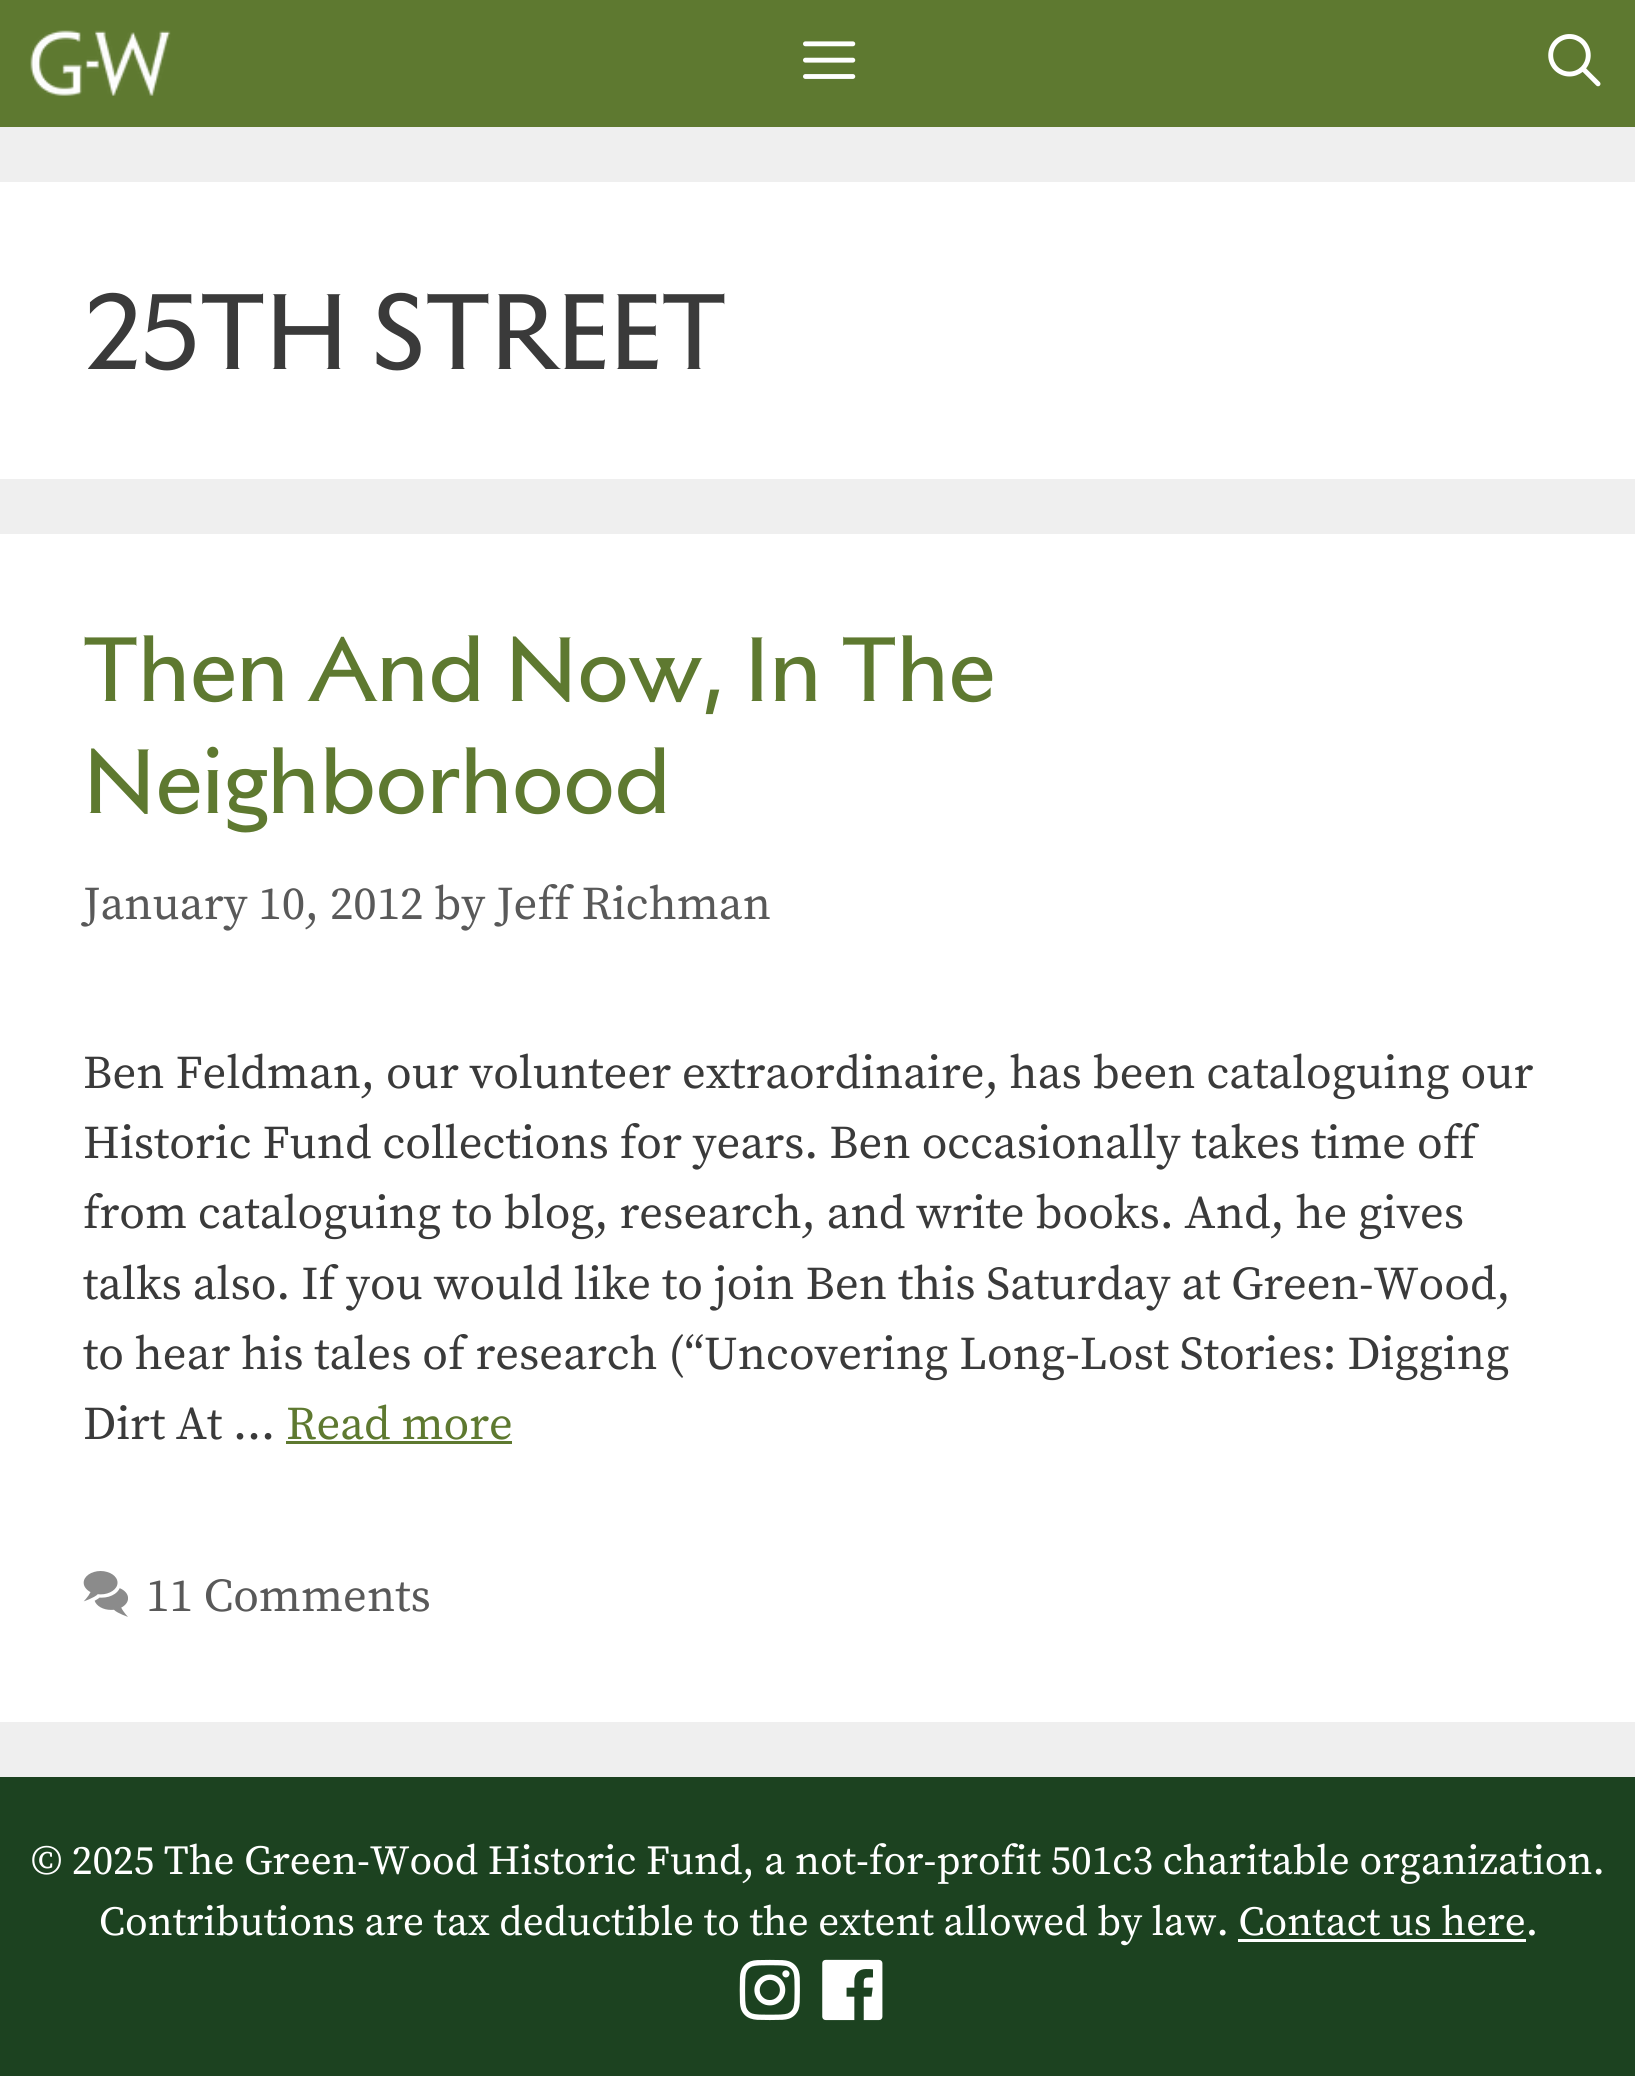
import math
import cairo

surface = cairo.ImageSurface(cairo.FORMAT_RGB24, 1635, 2076)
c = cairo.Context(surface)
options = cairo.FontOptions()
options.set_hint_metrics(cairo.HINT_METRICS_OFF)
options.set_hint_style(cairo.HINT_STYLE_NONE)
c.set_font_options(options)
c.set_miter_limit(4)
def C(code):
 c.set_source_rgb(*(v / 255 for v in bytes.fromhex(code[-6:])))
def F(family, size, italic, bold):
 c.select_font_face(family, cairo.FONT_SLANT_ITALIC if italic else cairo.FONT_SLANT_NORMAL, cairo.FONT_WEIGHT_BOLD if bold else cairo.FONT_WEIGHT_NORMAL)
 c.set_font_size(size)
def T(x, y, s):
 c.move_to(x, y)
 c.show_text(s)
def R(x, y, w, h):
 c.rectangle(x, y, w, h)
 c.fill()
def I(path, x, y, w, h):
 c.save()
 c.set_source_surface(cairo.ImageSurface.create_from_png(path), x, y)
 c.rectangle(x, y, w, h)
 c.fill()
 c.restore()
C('efefef')
c.paint()
C('5e7930')
R(0,0,1635,127)
I('1.png',30,30,141,66)
I('2.png',803,41,53,38)
I('3.png',1548,34,53,53)
C('ffffff')
R(0,182,1635,297)
F('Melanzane',110,0,0)
C('3a3a3a')
T(83,369,'25TH STREET')
C('ffffff')
R(0,534,1635,1188)
F('Melanzane',93.5,0,0)
C('5e7930')
T(83,701,'Then And Now, In The')
T(83,813,'Neighborhood')
F('Source Serif Pro',46.75,0,0)
C('595959')
T(83,919,'January 10, 2012 by Jeff Richman')
C('3a3a3a')
T(83,1088,'Ben Feldman, our volunteer extraordinaire, has been cataloguing our')
T(83,1158,'Historic Fund collections for years. Ben occasionally takes time off')
T(83,1228,'from cataloguing to blog, research, and write books. And, he gives')
T(83,1299,'talks also. If you would like to join Ben this Saturday at Green-Wood,')
T(83,1369,'to hear his tales of research (“Uncovering Long-Lost Stories: Digging')
T(83,1439,'Dirt At …')
C('5e7930')
T(286,1439,'Read more')
R(286,1441,226,3)
I('4.png',83,1571,45,46)
C('595959')
T(146,1611,'11 Comments')
C('1c4220')
R(0,1777,1635,299)
F('Source Serif Pro',41.25,0,0)
C('ffffff')
T(31,1874,'© 2025 The Green-Wood Historic Fund, a not-for-profit 501c3 charitable organization.')
T(99,1935,'Contributions are tax deductible to the extent allowed by law. Contact us here.')
R(1238,1939,288,3)
I('5.png',739,1959,61,62)
I('6.png',822,1959,61,62)
surface.write_to_png('o.png')
